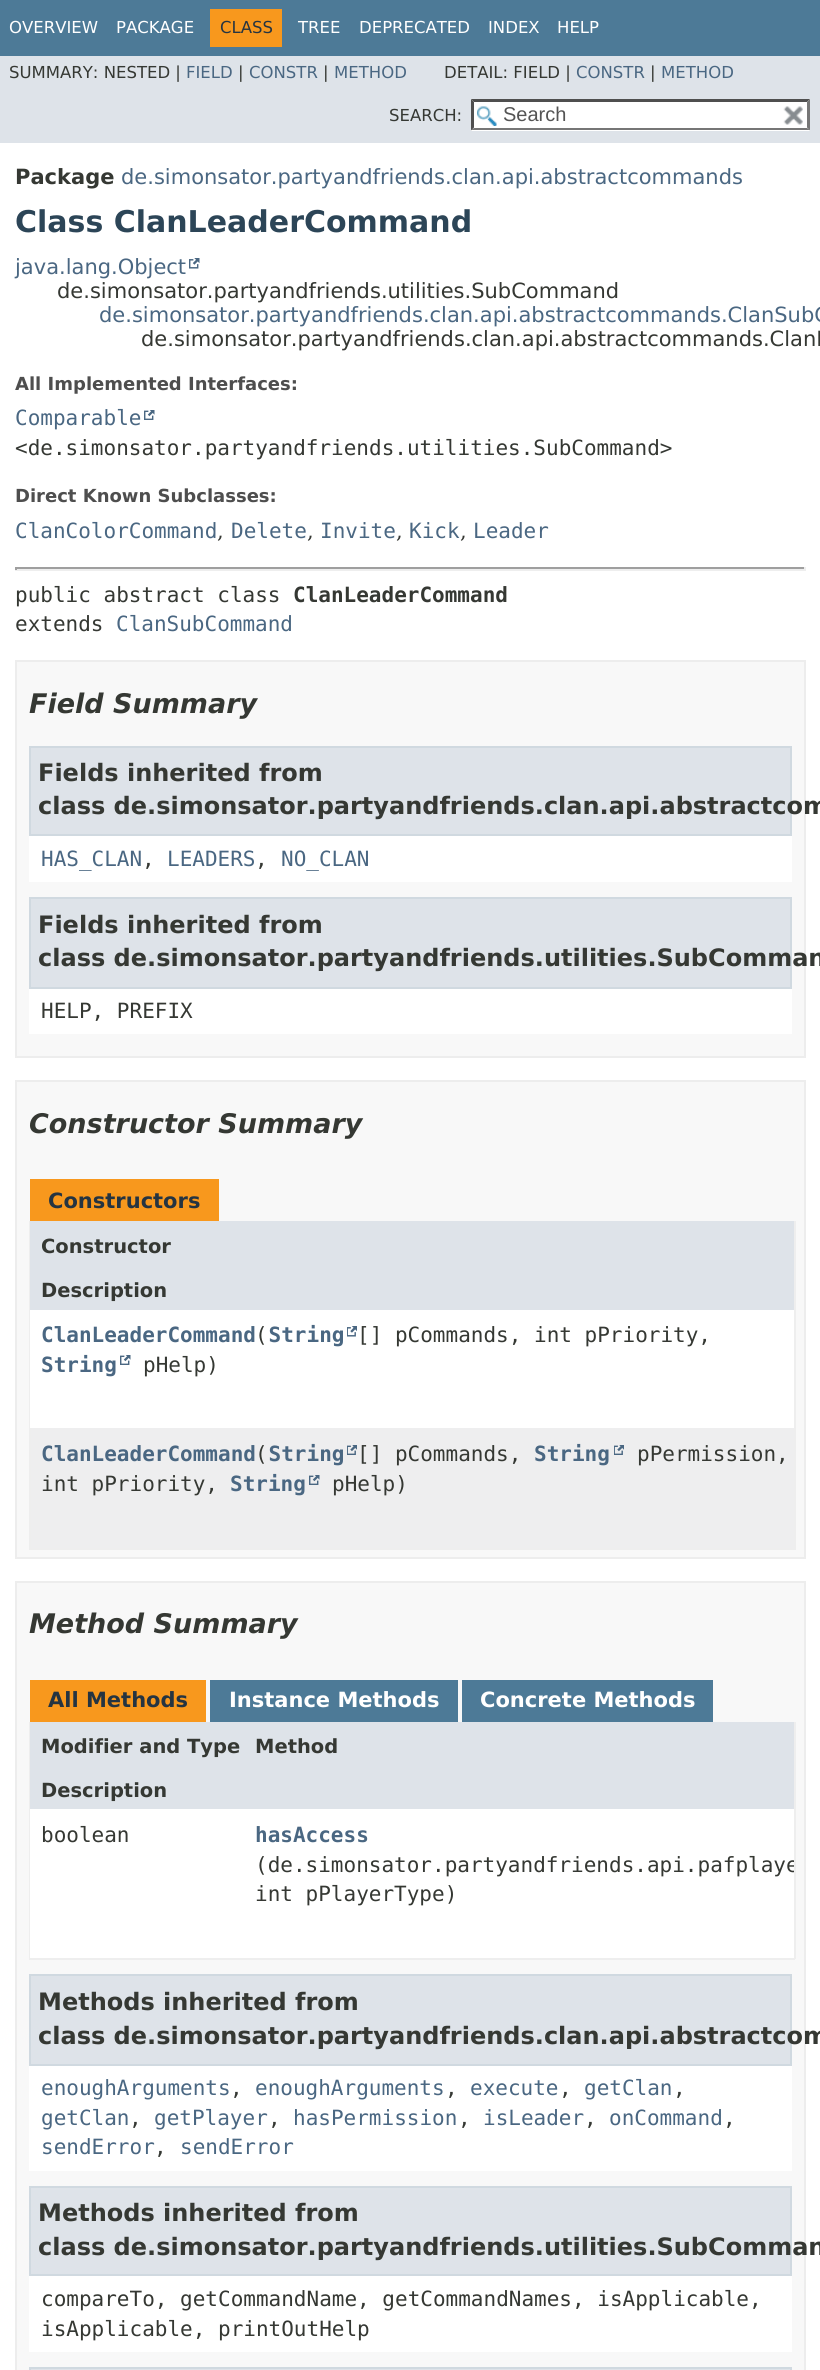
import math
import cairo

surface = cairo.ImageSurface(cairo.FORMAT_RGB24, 820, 2370)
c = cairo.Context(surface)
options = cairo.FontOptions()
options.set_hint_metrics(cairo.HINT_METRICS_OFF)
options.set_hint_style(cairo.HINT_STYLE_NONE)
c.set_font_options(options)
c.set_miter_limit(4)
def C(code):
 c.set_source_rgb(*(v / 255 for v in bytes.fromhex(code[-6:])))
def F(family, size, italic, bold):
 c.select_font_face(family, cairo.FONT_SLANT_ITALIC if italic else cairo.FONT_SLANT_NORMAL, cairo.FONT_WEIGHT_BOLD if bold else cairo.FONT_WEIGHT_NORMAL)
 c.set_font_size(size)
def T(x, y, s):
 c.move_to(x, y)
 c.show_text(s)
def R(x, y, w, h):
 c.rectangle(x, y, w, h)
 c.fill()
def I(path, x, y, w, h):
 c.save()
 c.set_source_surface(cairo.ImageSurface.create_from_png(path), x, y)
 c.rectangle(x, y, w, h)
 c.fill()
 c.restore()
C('ffffff')
c.paint()
C('4d7a97')
R(0,0,820,56)
F('DejaVu Sans',16.5,0,0)
C('ffffff')
T(9,33,'OVERVIEW')
T(116,33,'PACKAGE')
C('f8981d')
R(210,9,72,38)
C('253441')
T(220,33,'CLASS')
C('ffffff')
T(298,33,'TREE')
T(359,33,'DEPRECATED')
T(488,33,'INDEX')
T(557,33,'HELP')
C('dee3e9')
R(0,56,820,87)
C('353833')
T(9,78,'SUMMARY: NESTED |')
C('4a6782')
T(186,78,'FIELD')
C('353833')
T(238,78,'|')
C('4a6782')
T(249,78,'CONSTR')
C('353833')
T(323,78,'|')
C('4a6782')
T(334,78,'METHOD')
C('353833')
T(444,78,'DETAIL: FIELD |')
C('4a6782')
T(576,78,'CONSTR')
C('353833')
T(650,78,'|')
C('4a6782')
T(661,78,'METHOD')
C('353833')
T(389,121,'SEARCH:')
C('ffffff')
R(471,99,339,32)
I('1.png',477,106,20,20)
C('4f4f4f')
c.new_path()
c.move_to(471,99)
c.line_to(810,99)
c.line_to(807,102)
c.line_to(474,102)
c.close_path()
c.fill()
C('767676')
c.new_path()
c.move_to(810,99)
c.line_to(810,130.5)
c.line_to(807,127.5)
c.line_to(807,102)
c.close_path()
c.fill()
c.new_path()
c.move_to(810,130)
c.line_to(471,130)
c.line_to(474,128)
c.line_to(807,128)
c.close_path()
c.fill()
C('4f4f4f')
c.new_path()
c.move_to(471,130.5)
c.line_to(471,99)
c.line_to(474,102)
c.line_to(474,127.5)
c.close_path()
c.fill()
F('Liberation Sans',20,0,0)
C('545454')
T(503,121,'Search')
I('2.png',783,106,20,19)
F('DejaVu Sans',21,0,1)
C('353833')
T(15,184,'Package')
F('DejaVu Sans',21,0,0)
C('4a6782')
T(121,184,'de.simonsator.partyandfriends.clan.api.abstractcommands')
F('DejaVu Sans',30,0,1)
C('2c4557')
T(15,232,'Class ClanLeaderCommand')
F('DejaVu Sans',21,0,0)
C('4a6782')
T(15,274,'java.lang.Object')
I('3.png',189,258,11,11)
C('353833')
T(57,298,'de.simonsator.partyandfriends.utilities.SubCommand')
C('4a6782')
T(99,322,'de.simonsator.partyandfriends.clan.api.abstractcommands.ClanSubC')
C('353833')
T(141,346,'de.simonsator.partyandfriends.clan.api.abstractcommands.ClanL')
F('DejaVu Sans',18,0,1)
C('4e4e4e')
T(15,390,'All Implemented Interfaces:')
F('DejaVu Sans Mono',21,0,0)
C('4a6782')
T(15,425,'Comparable')
I('4.png',144,410,11,10)
C('353833')
T(15,455,'<de.simonsator.partyandfriends.utilities.SubCommand>')
F('DejaVu Sans',18,0,1)
C('4e4e4e')
T(15,502,'Direct Known Subclasses:')
F('DejaVu Sans Mono',21,0,0)
C('4a6782')
T(15,538,'ClanColorCommand')
F('DejaVu Serif',21,0,0)
C('353833')
T(217,538,',')
F('DejaVu Sans Mono',21,0,0)
C('4a6782')
T(231,538,'Delete')
F('DejaVu Serif',21,0,0)
C('353833')
T(307,538,',')
F('DejaVu Sans Mono',21,0,0)
C('4a6782')
T(320,538,'Invite')
F('DejaVu Serif',21,0,0)
C('353833')
T(396,538,',')
F('DejaVu Sans Mono',21,0,0)
C('4a6782')
T(409,538,'Kick')
F('DejaVu Serif',21,0,0)
C('353833')
T(460,538,',')
F('DejaVu Sans Mono',21,0,0)
C('4a6782')
T(473,538,'Leader')
C('9f9f9f')
R(15,567,791,2)
C('eeeeee')
R(804,567,2,3)
R(15,569,791,2)
C('9f9f9f')
R(15,567,2,3)
C('353833')
T(15,602,'public abstract class')
F('DejaVu Sans Mono',21,0,1)
T(293,602,'ClanLeaderCommand')
F('DejaVu Sans Mono',21,0,0)
T(15,631,'extends')
C('4a6782')
T(116,631,'ClanSubCommand')
C('f8f8f8')
c.rectangle(16,661,789,396)
c.fill_preserve()
C('ededed')
c.stroke()
F('DejaVu Sans',27,1,1)
C('353833')
T(29,713,'Field Summary')
C('ffffff')
R(29,836,763,46)
C('dee3e9')
c.rectangle(30,747,761,88)
c.fill_preserve()
C('d0d9e0')
c.stroke()
F('DejaVu Sans',24,0,1)
C('353833')
T(38,781,'Fields inherited from')
T(38,814,'class de.simonsator.partyandfriends.clan.api.abstractcom')
F('DejaVu Sans Mono',21,0,0)
C('4a6782')
T(41,866,'HAS_CLAN')
C('353833')
T(142,866,',')
C('4a6782')
T(167,866,'LEADERS')
C('353833')
T(255,866,',')
C('4a6782')
T(281,866,'NO_CLAN')
C('ffffff')
R(29,989,763,45)
C('dee3e9')
c.rectangle(30,898,761,90)
c.fill_preserve()
C('d0d9e0')
c.stroke()
F('DejaVu Sans',24,0,1)
C('353833')
T(38,933,'Fields inherited from')
T(38,966,'class de.simonsator.partyandfriends.utilities.SubComman')
F('DejaVu Sans Mono',21,0,0)
T(41,1018,'HELP, PREFIX')
C('f8f8f8')
c.rectangle(16,1081,789,477)
c.fill_preserve()
C('ededed')
c.stroke()
F('DejaVu Sans',27,1,1)
C('353833')
T(29,1133,'Constructor Summary')
C('f8981d')
R(30,1179,189,42)
F('DejaVu Sans',21,0,1)
C('253441')
T(48,1208,'Constructors')
C('eeeeee')
R(794,1221,2,329)
R(29,1548,766,2)
R(29,1221,2,329)
C('dee3e9')
R(30,1221,764,89)
F('DejaVu Sans',19.5,0,1)
C('353833')
T(41,1253,'Constructor')
T(41,1297,'Description')
C('ffffff')
R(30,1310,764,118)
F('DejaVu Sans Mono',21,0,1)
C('4a6782')
T(41,1342,'ClanLeaderCommand String')
F('DejaVu Sans Mono',21,0,0)
C('353833')
T(255,1342,'(')
I('5.png',347,1326,10,11)
T(357,1342,'[] pCommands, int pPriority,')
F('DejaVu Sans Mono',21,0,1)
C('4a6782')
T(41,1372,'String')
I('4.png',120,1355,11,10)
F('DejaVu Sans Mono',21,0,0)
C('353833')
T(143,1372,'pHelp)')
C('eeeeef')
R(31,1428,763,120)
F('DejaVu Sans Mono',21,0,1)
C('4a6782')
T(41,1461,'ClanLeaderCommand String')
T(534,1461,'String')
I('6.png',614,1445,10,10)
F('DejaVu Sans Mono',21,0,0)
C('353833')
T(255,1461,'(')
I('6.png',347,1445,10,10)
T(357,1461,'[] pCommands,')
T(637,1461,'pPermission,')
T(41,1491,'int pPriority,')
F('DejaVu Sans Mono',21,0,1)
C('4a6782')
T(230,1491,'String')
I('7.png',309,1475,11,10)
F('DejaVu Sans Mono',21,0,0)
C('353833')
T(332,1491,'pHelp)')
C('f8f8f8')
c.rectangle(16,1582,789,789)
c.fill_preserve()
C('ededed')
c.stroke()
F('DejaVu Sans',27,1,1)
C('353833')
T(29,1633,'Method Summary')
C('f8981d')
R(30,1680,176,42)
F('DejaVu Sans',21,0,1)
C('253441')
T(48,1707,'All Methods')
C('4d7a97')
R(210,1680,248,42)
C('ffffff')
T(229,1707,'Instance Methods')
C('4d7a97')
R(462,1680,251,42)
C('ffffff')
T(480,1707,'Concrete Methods')
C('eeeeee')
R(794,1722,2,237)
R(29,1958,766,2)
R(29,1722,2,237)
C('dee3e9')
R(30,1722,764,44)
F('DejaVu Sans',19.5,0,1)
C('353833')
T(41,1753,'Modifier and Type')
T(255,1753,'Method')
C('dee3e9')
R(30,1766,764,43)
C('353833')
T(41,1797,'Description')
C('ffffff')
R(30,1809,764,105)
F('DejaVu Sans Mono',21,0,0)
C('353833')
T(41,1842,'boolean')
F('DejaVu Sans Mono',21,0,1)
C('4a6782')
T(255,1842,'hasAccess')
c.save()
c.rectangle(245,1809,549,105)
c.clip()
F('DejaVu Sans Mono',21,0,0)
C('353833')
T(255,1872,'(de.simonsator.partyandfriends.api.pafplaye')
c.restore()
F('DejaVu Sans Mono',21,0,0)
C('353833')
T(255,1901,'int pPlayerType)')
C('ffffff')
R(30,1914,764,44)
R(29,2066,763,105)
C('dee3e9')
c.rectangle(30,1975,761,90)
c.fill_preserve()
C('d0d9e0')
c.stroke()
F('DejaVu Sans',24,0,1)
C('353833')
T(38,2010,'Methods inherited from')
T(38,2044,'class de.simonsator.partyandfriends.clan.api.abstractcom')
F('DejaVu Sans Mono',21,0,0)
C('4a6782')
T(41,2095,'enoughArguments')
C('353833')
T(230,2095,',')
C('4a6782')
T(255,2095,'enoughArguments')
C('353833')
T(445,2095,',')
C('4a6782')
T(470,2095,'execute')
C('353833')
T(559,2095,',')
C('4a6782')
T(584,2095,'getClan')
C('353833')
T(673,2095,',')
C('4a6782')
T(41,2125,'getClan')
C('353833')
T(129,2125,',')
C('4a6782')
T(154,2125,'getPlayer')
C('353833')
T(268,2125,',')
C('4a6782')
T(293,2125,'hasPermission')
C('353833')
T(458,2125,',')
C('4a6782')
T(483,2125,'isLeader')
C('353833')
T(584,2125,',')
C('4a6782')
T(609,2125,'onCommand')
C('353833')
T(723,2125,',')
C('4a6782')
T(41,2154,'sendError')
C('353833')
T(154,2154,',')
C('4a6782')
T(180,2154,'sendError')
C('ffffff')
R(29,2276,763,76)
C('dee3e9')
c.rectangle(30,2187,761,88)
c.fill_preserve()
C('d0d9e0')
c.stroke()
F('DejaVu Sans',24,0,1)
C('353833')
T(38,2221,'Methods inherited from')
T(38,2255,'class de.simonsator.partyandfriends.utilities.SubComman')
F('DejaVu Sans Mono',21,0,0)
T(41,2306,'compareTo, getCommandName, getCommandNames, isApplicable,')
T(41,2336,'isApplicable, printOutHelp')
C('dee3e9')
c.rectangle(30,2368,761,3)
c.fill_preserve()
C('d0d9e0')
c.stroke()
surface.write_to_png('o.png')
